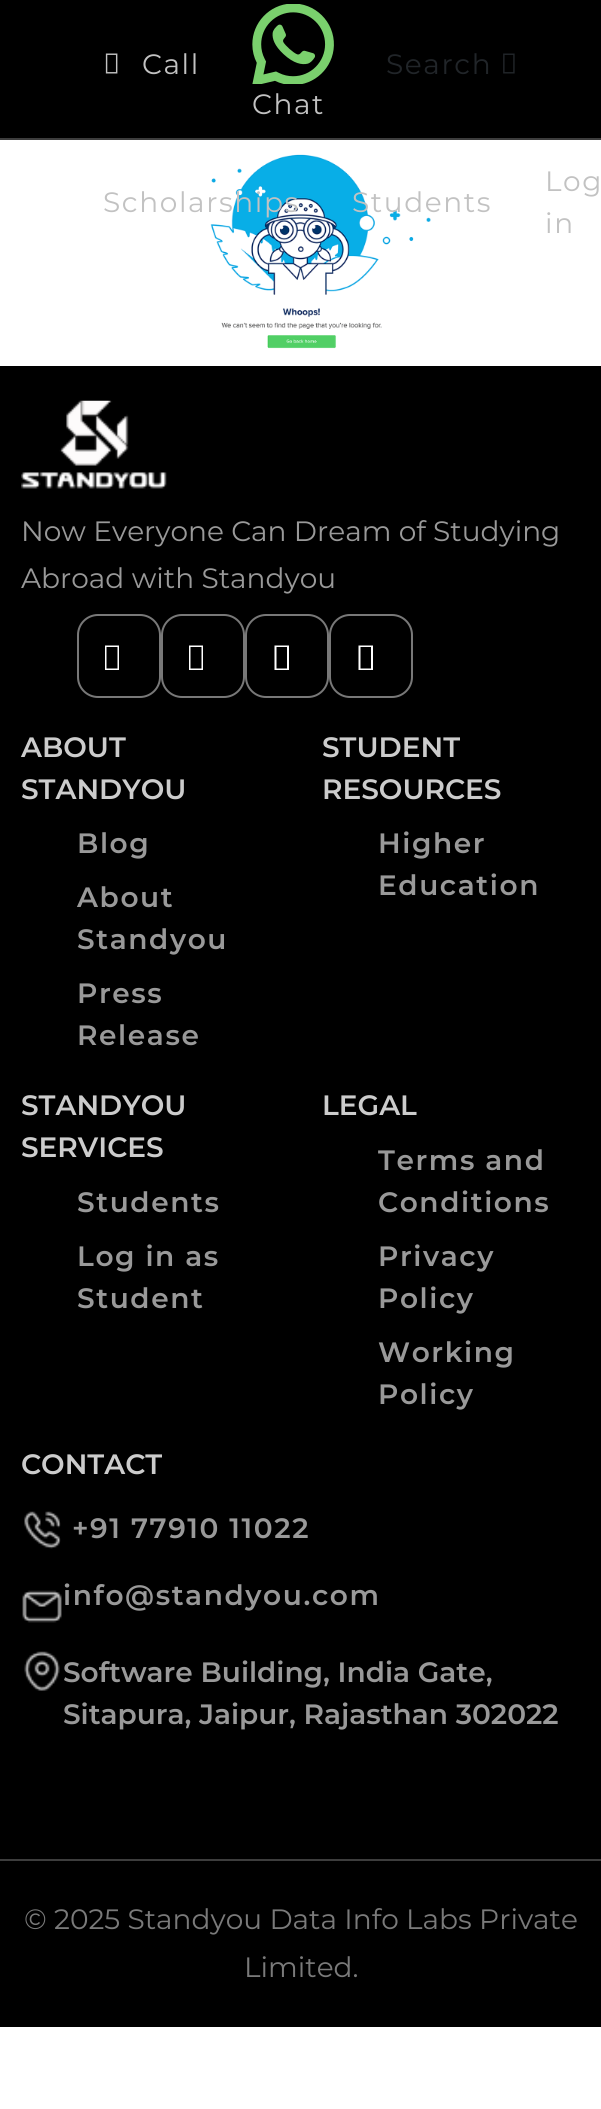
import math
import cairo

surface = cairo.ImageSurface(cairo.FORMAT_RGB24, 601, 2109)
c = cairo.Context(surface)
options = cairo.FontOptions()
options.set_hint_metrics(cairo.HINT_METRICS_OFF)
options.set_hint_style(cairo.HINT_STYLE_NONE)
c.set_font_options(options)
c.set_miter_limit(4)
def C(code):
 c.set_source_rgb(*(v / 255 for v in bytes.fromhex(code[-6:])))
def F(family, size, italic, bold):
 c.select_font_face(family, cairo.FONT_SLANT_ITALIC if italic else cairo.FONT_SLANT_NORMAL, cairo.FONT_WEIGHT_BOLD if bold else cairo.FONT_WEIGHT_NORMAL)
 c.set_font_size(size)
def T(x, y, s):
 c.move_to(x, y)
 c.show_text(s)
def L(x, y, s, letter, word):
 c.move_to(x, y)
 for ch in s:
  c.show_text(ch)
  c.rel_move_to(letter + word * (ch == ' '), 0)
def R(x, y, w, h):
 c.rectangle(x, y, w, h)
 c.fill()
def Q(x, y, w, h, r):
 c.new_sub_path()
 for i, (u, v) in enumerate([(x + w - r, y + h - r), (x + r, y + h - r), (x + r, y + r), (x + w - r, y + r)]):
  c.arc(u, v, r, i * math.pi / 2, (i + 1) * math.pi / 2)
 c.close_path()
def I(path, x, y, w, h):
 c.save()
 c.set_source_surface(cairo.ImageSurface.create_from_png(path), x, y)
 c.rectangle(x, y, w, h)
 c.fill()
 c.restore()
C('ffffff')
c.paint()
C('000000')
R(0,0,601,138)
C('3d3d3d')
R(0,138,601,2)
I('1.png',105,53,13,21)
F('Montserrat',28,0,0)
C('c2c2c2')
L(142,74,'Call',1.6,0)
C('212529')
L(386,74,'Search',1.6,0)
I('2.png',503,53,12,21)
I('3.png',252,4,82,80)
C('c2c2c2')
L(252,114,'Chat',1.6,0)
I('4.png',210,154,221,195)
L(103,212,'Scholarships',1.6,0)
L(352,212,'Students',1.6,0)
L(545,191,'Log',1.6,0)
L(545,233,'in',1.6,0)
C('000000')
R(0,366,601,1661)
I('5.png',21,400,146,89)
C('999999')
T(21,541,'Now Everyone Can Dream of Studying')
T(21,588,'Abroad with Standyou')
Q(78,615,82,82,20)
C('787878')
c.stroke()
C('ffffff')
c.new_path()
c.move_to(105,670)
c.line_to(105,645.5)
c.line_to(119,645.5)
c.line_to(119,670)
c.close_path()
c.move_to(106.5,668.5)
c.line_to(117.5,668.5)
c.line_to(117.5,647)
c.line_to(106.5,647)
c.close_path()
c.fill()
Q(162,615,82,82,20)
C('787878')
c.stroke()
C('ffffff')
c.new_path()
c.move_to(189,670)
c.line_to(189,645.5)
c.line_to(203,645.5)
c.line_to(203,670)
c.close_path()
c.move_to(190.5,668.5)
c.line_to(201.5,668.5)
c.line_to(201.5,647)
c.line_to(190.5,647)
c.close_path()
c.fill()
Q(246,615,82,82,20)
C('787878')
c.stroke()
C('ffffff')
c.new_path()
c.move_to(274.5,670)
c.line_to(274.5,645.5)
c.line_to(289,645.5)
c.line_to(289,670)
c.close_path()
c.move_to(276.5,668.5)
c.line_to(287,668.5)
c.line_to(287,647)
c.line_to(276.5,647)
c.close_path()
c.fill()
Q(330,615,82,82,20)
C('787878')
c.stroke()
C('ffffff')
c.new_path()
c.move_to(358.5,670)
c.line_to(358.5,645.5)
c.line_to(373,645.5)
c.line_to(373,670)
c.close_path()
c.move_to(360.5,668.5)
c.line_to(371,668.5)
c.line_to(371,647)
c.line_to(360.5,647)
c.close_path()
c.fill()
F('Montserrat SemiBold',28,0,0)
C('cccccc')
T(21,757,'ABOUT')
T(21,799,'STANDYOU')
C('999999')
L(77,853,'Blog',1.6,0)
L(77,907,'About',1.6,0)
L(77,949,'Standyou',1.6,0)
L(77,1003,'Press',1.6,0)
L(77,1045,'Release',1.6,0)
C('cccccc')
T(322,757,'STUDENT')
T(322,799,'RESOURCES')
C('999999')
L(378,853,'Higher',1.6,0)
L(378,895,'Education',1.6,0)
C('cccccc')
T(21,1115,'STANDYOU')
T(21,1157,'SERVICES')
C('999999')
L(77,1212,'Students',1.6,0)
L(77,1266,'Log in as',1.6,0)
L(77,1308,'Student',1.6,0)
C('cccccc')
T(322,1115,'LEGAL')
C('999999')
L(378,1170,'Terms and',1.6,0)
L(378,1212,'Conditions',1.6,0)
L(378,1266,'Privacy',1.6,0)
L(378,1308,'Policy',1.6,0)
L(378,1362,'Working',1.6,0)
L(378,1404,'Policy',1.6,0)
C('cccccc')
T(21,1474,'CONTACT')
I('6.png',24,1511,37,38)
C('999999')
L(72,1538,'+91 77910 11022',1.6,0)
I('7.png',22,1590,40,33)
L(63,1605,'info@standyou.com',1.6,0)
I('8.png',24,1651,36,40)
T(63,1682,'Software Building, India Gate,')
T(63,1724,'Sitapura, Jaipur, Rajasthan 302022')
C('3d3d3d')
R(0,1859,601,2)
F('Montserrat',28,0,0)
C('7a7a7a')
T(24,1929,'© 2025 Standyou Data Info Labs Private')
T(244,1977,'Limited.')
surface.write_to_png('o.png')
